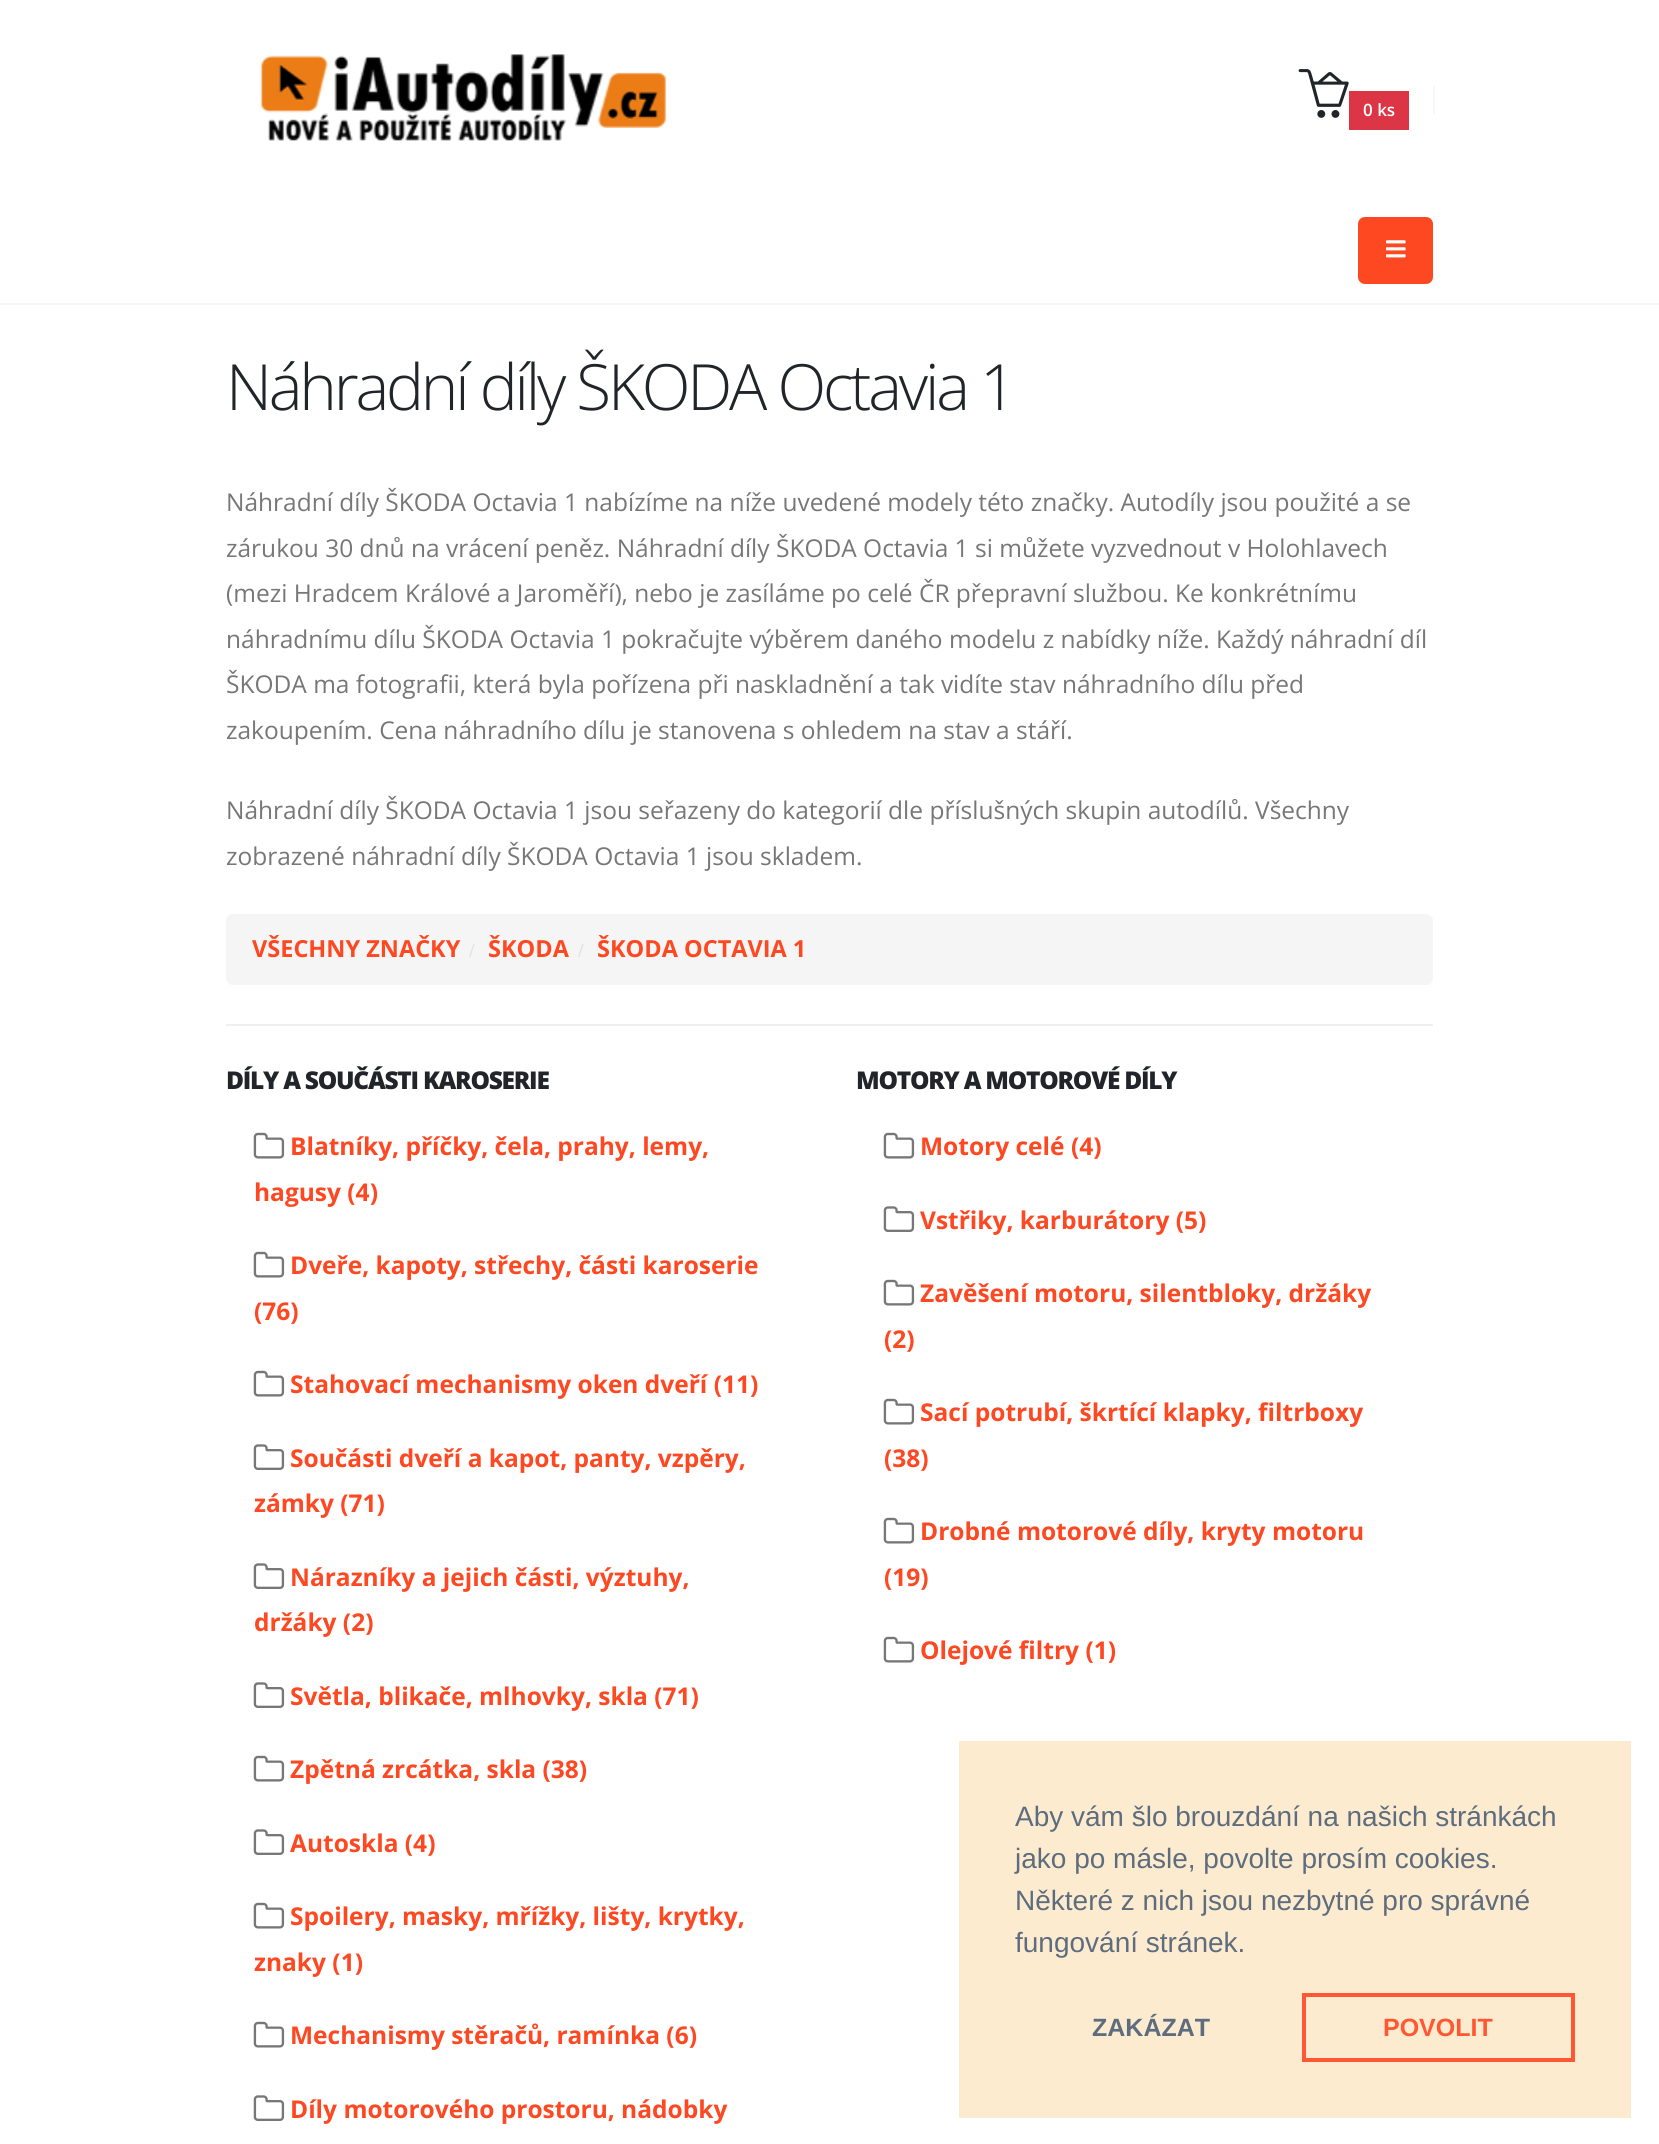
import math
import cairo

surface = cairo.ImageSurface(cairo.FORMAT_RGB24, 1659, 2144)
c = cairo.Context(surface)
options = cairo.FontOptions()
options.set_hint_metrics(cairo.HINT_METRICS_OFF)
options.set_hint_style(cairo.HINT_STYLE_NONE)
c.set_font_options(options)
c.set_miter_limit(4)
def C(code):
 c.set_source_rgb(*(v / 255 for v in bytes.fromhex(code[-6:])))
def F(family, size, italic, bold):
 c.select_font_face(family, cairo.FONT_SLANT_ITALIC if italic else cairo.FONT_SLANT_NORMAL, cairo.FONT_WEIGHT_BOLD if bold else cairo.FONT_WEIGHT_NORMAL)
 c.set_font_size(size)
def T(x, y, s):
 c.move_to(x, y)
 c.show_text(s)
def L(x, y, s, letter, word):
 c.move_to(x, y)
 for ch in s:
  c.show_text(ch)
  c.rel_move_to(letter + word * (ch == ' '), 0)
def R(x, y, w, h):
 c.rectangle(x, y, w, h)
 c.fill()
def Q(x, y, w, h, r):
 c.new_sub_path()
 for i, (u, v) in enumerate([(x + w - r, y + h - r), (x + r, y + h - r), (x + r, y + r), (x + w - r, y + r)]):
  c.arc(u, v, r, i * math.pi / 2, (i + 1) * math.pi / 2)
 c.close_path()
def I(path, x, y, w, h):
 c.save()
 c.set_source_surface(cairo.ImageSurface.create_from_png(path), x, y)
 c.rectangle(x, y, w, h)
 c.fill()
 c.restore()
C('ffffff')
c.paint()
C('f5f5f5')
R(0,303,1659,2)
I('1.png',260,54,407,87)
I('2.png',1298,69,51,49)
C('dc3545')
R(1349,91,60,39)
F('Open Sans SemiBold',17,0,0)
C('ffffff')
T(1363,116,'0 ks')
C('f7f7f7')
R(1433,86,2,28)
C('fe4822')
Q(1358,217,75,67,7)
c.fill()
I('3.png',1386,240,20,18)
F('Open Sans Light',63.75,0,0)
C('212529')
L(226,410,'Náhradní díly ŠKODA Octavia 1',-3.2,0)
F('Open Sans',24.5,0,0)
C('777777')
T(226,511,'Náhradní díly ŠKODA Octavia 1 nabízíme na níže uvedené modely této značky. Autodíly jsou použité a se')
T(226,557,'zárukou 30 dnů na vrácení peněz. Náhradní díly ŠKODA Octavia 1 si můžete vyzvednout v Holohlavech')
T(226,602,'(mezi Hradcem Králové a Jaroměří), nebo je zasíláme po celé ČR přepravní službou. Ke konkrétnímu')
T(226,648,'náhradnímu dílu ŠKODA Octavia 1 pokračujte výběrem daného modelu z nabídky níže. Každý náhradní díl')
T(226,693,'ŠKODA ma fotografii, která byla pořízena při naskladnění a tak vidíte stav náhradního dílu před')
T(226,739,'zakoupením. Cena náhradního dílu je stanovena s ohledem na stav a stáří.')
T(226,819,'Náhradní díly ŠKODA Octavia 1 jsou seřazeny do kategorií dle příslušných skupin autodílů. Všechny')
T(226,865,'zobrazené náhradní díly ŠKODA Octavia 1 jsou skladem.')
C('f5f5f5')
Q(226,914,1207,71,7)
c.fill()
F('Open Sans',23.5,0,1)
C('fe4822')
T(252,957,'VŠECHNY ZNAČKY')
F('Liberation Serif',20,0,1)
C('e1e1e1')
T(469,957,'/')
F('Open Sans',23.5,0,1)
C('fe4822')
T(488,957,'ŠKODA')
F('Liberation Serif',20,0,1)
C('e1e1e1')
T(578,957,'/')
F('Open Sans',23.5,0,1)
C('fe4822')
T(597,957,'ŠKODA OCTAVIA 1')
C('f0f0f0')
R(226,1024,1207,2)
F('Open Sans ExtraBold',24.5,0,0)
C('212529')
L(226,1089,'DÍLY A SOUČÁSTI KAROSERIE',-1.25,0)
I('4.png',253,1132,32,27)
F('Open Sans',24.5,0,1)
C('fe4822')
T(290,1155,'Blatníky, příčky, čela, prahy, lemy,')
T(254,1201,'hagusy (4)')
I('4.png',253,1251,32,27)
T(290,1274,'Dveře, kapoty, střechy, části karoserie')
T(254,1320,'(76)')
I('4.png',253,1370,32,27)
T(290,1393,'Stahovací mechanismy oken dveří (11)')
I('5.png',253,1444,32,26)
T(290,1467,'Součásti dveří a kapot, panty, vzpěry,')
T(254,1512,'zámky (71)')
I('5.png',253,1563,32,26)
T(290,1586,'Nárazníky a jejich části, výztuhy,')
T(254,1631,'držáky (2)')
I('5.png',253,1682,32,26)
T(290,1705,'Světla, blikače, mlhovky, skla (71)')
I('4.png',253,1755,32,27)
T(290,1778,'Zpětná zrcátka, skla (38)')
I('5.png',253,1829,32,26)
T(290,1852,'Autoskla (4)')
I('4.png',253,1902,32,27)
T(290,1925,'Spoilery, masky, mřížky, lišty, krytky,')
T(254,1971,'znaky (1)')
I('4.png',253,2021,32,27)
T(290,2044,'Mechanismy stěračů, ramínka (6)')
I('5.png',253,2095,32,26)
T(290,2118,'Díly motorového prostoru, nádobky')
F('Open Sans ExtraBold',24.5,0,0)
C('212529')
L(856,1089,'MOTORY A MOTOROVÉ DÍLY',-1.25,0)
I('4.png',883,1132,32,27)
F('Open Sans',24.5,0,1)
C('fe4822')
T(920,1155,'Motory celé (4)')
I('5.png',883,1206,32,26)
T(920,1229,'Vstřiky, karburátory (5)')
I('4.png',883,1279,32,27)
T(920,1302,'Zavěšení motoru, silentbloky, držáky')
T(884,1348,'(2)')
I('4.png',883,1398,32,27)
T(920,1421,'Sací potrubí, škrtící klapky, filtrboxy')
T(884,1467,'(38)')
I('4.png',883,1517,32,27)
T(920,1540,'Drobné motorové díly, kryty motoru')
T(884,1586,'(19)')
I('4.png',883,1636,32,27)
T(920,1659,'Olejové filtry (1)')
C('fdebd0')
R(959,1741,672,377)
F('Liberation Sans',28,0,0)
C('5d6d7e')
T(1015,1826,'Aby vám šlo brouzdání na našich stránkách')
T(1015,1868,'jako po másle, povolte prosím cookies.')
T(1015,1910,'Některé z nich jsou nezbytné pro správné')
T(1015,1952,'fungování stránek.')
F('Liberation Sans',25,0,1)
T(1092,2036,'ZAKÁZAT')
c.rectangle(1304,1995,269,65)
C('ff5733')
c.set_line_width(4)
c.stroke()
T(1383,2036,'POVOLIT')
surface.write_to_png('o.png')
